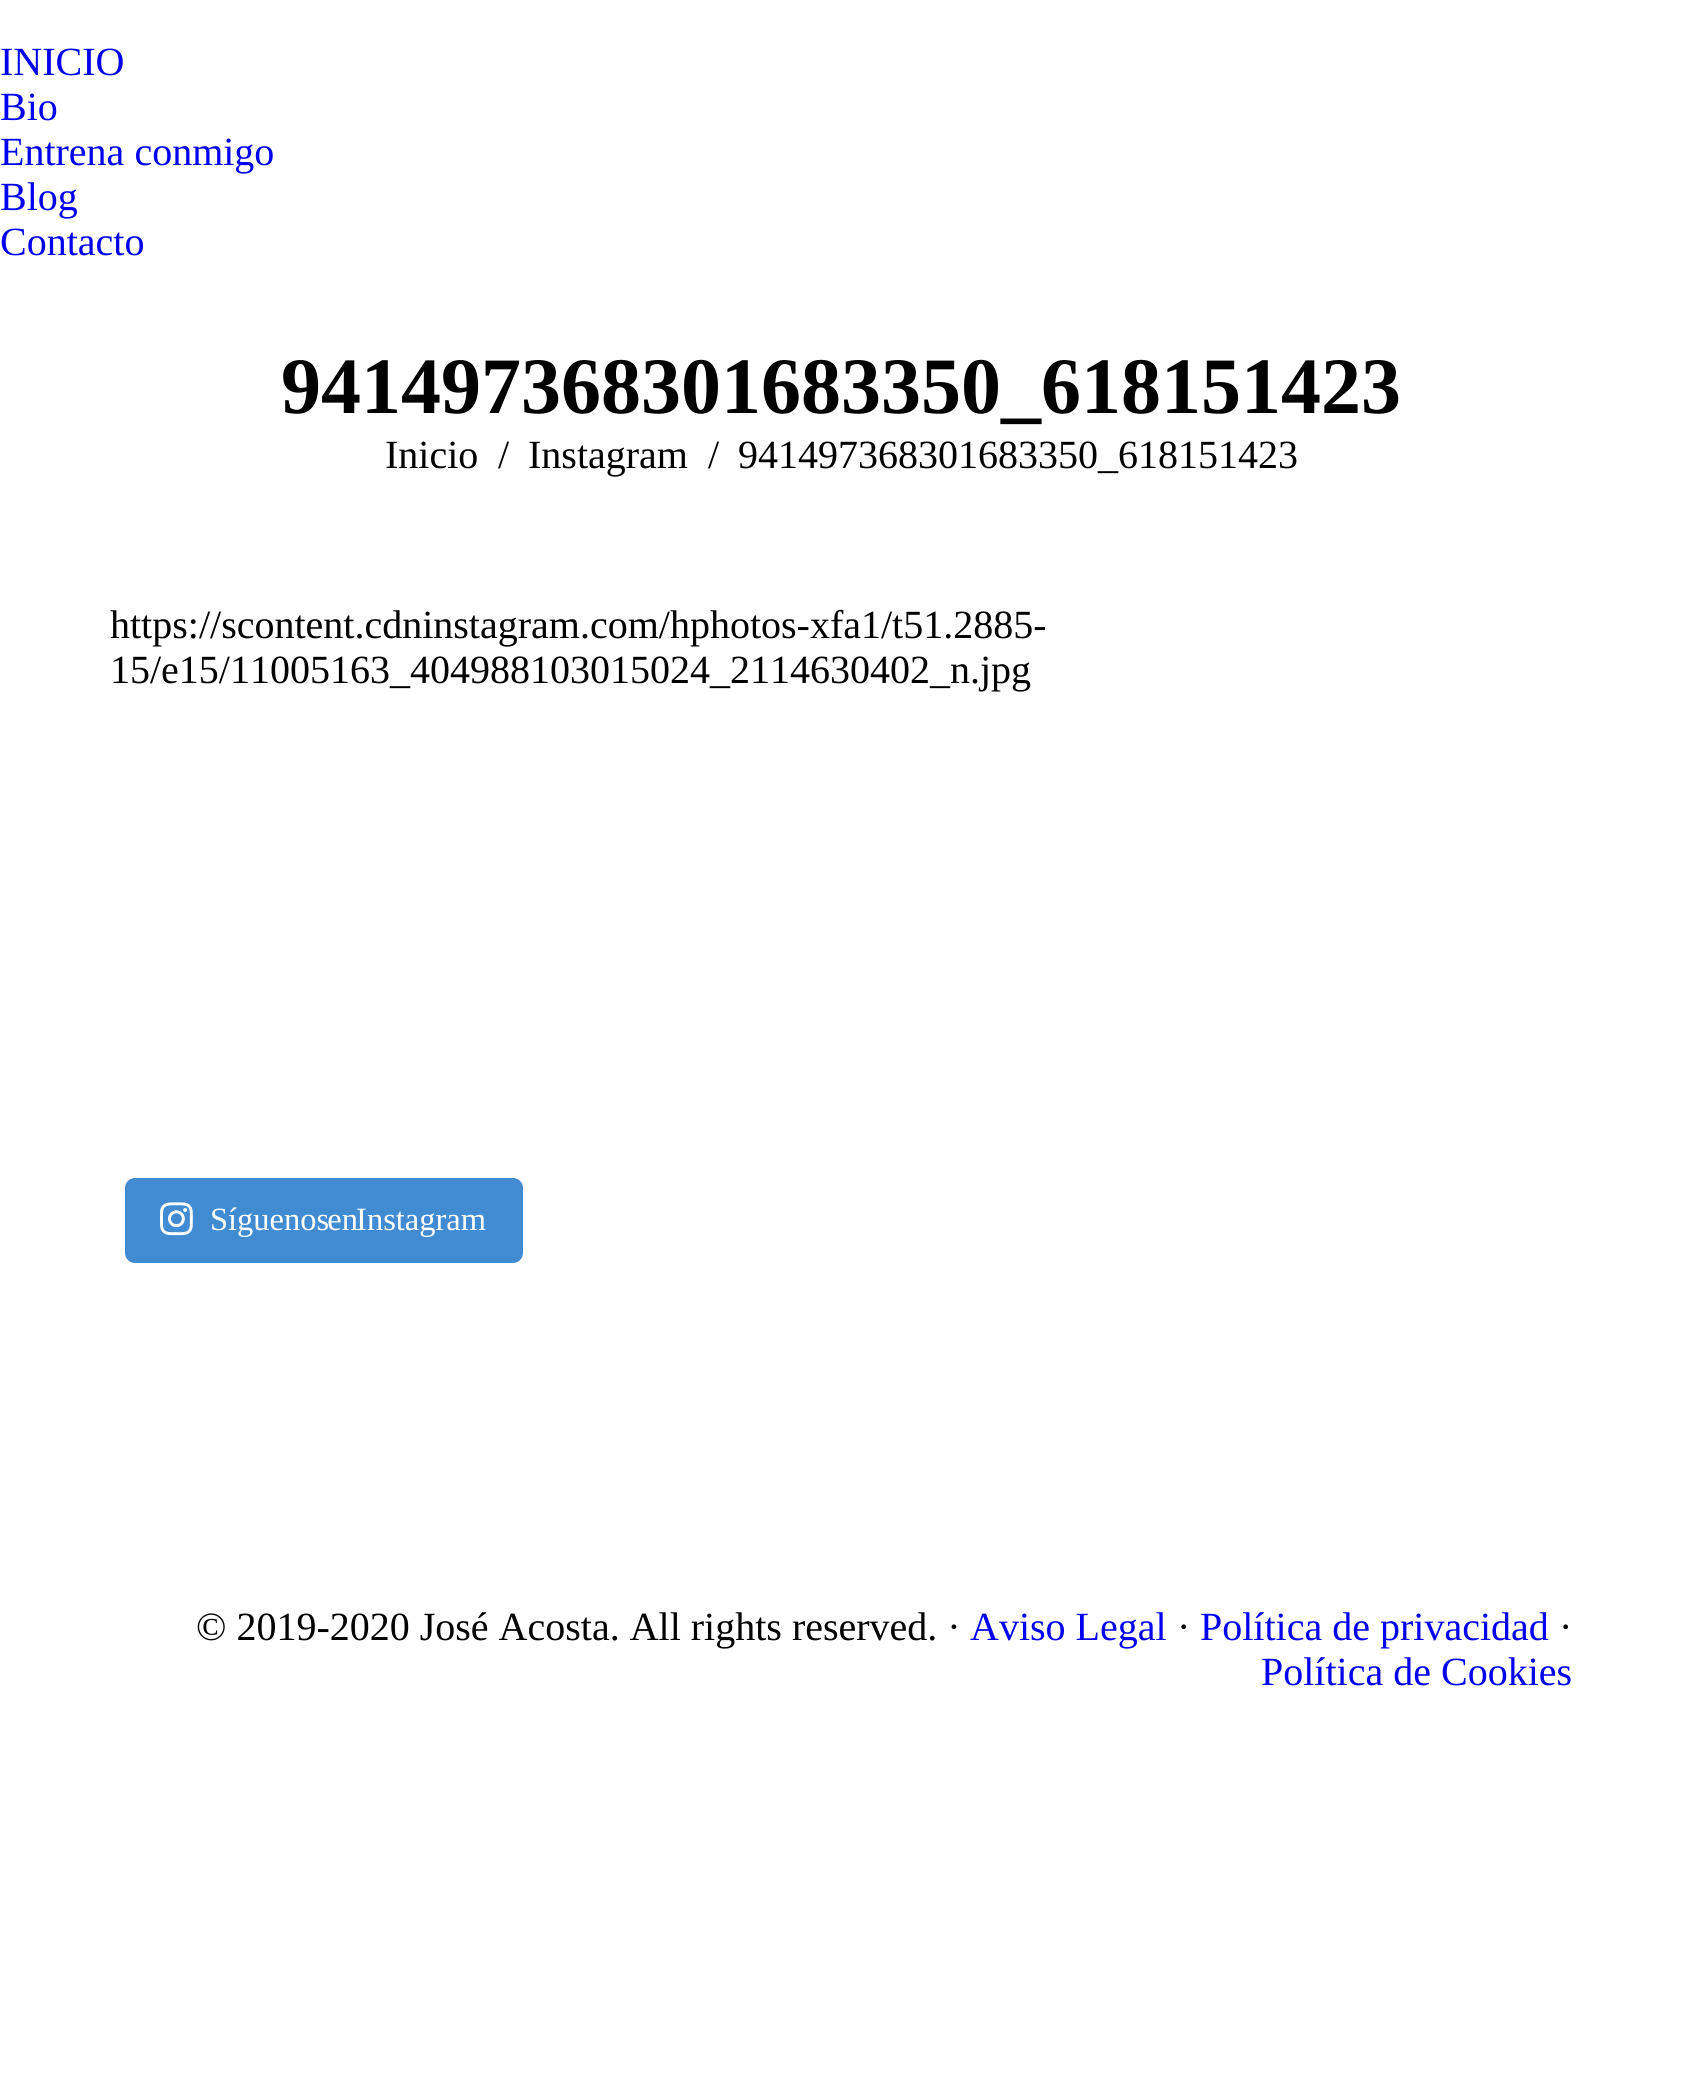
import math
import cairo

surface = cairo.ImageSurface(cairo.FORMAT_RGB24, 1681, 2092)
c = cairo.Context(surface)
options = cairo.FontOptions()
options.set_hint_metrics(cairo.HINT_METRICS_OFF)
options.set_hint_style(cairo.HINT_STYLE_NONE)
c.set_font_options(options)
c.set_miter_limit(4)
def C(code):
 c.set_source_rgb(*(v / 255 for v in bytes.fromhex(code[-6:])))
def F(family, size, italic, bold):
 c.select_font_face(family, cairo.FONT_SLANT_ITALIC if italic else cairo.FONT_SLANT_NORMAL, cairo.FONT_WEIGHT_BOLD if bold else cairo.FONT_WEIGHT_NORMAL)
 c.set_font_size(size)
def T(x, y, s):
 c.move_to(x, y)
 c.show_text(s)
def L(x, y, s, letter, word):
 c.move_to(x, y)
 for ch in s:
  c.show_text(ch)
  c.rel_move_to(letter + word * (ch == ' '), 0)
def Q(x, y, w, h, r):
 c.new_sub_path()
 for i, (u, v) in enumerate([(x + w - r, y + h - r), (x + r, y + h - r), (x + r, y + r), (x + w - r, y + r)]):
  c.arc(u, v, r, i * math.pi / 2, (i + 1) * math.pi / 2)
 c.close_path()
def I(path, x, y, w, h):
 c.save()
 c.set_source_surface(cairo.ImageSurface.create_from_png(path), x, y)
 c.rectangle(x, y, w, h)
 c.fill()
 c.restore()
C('ffffff')
c.paint()
F('Liberation Serif',40,0,0)
C('0000ee')
T(0,75,'INICIO')
T(0,120,'Bio')
T(0,165,'Entrena conmigo')
T(0,210,'Blog')
T(0,255,'Contacto')
F('Liberation Serif',80,0,1)
C('000000')
T(281,413,'941497368301683350_618151423')
F('Liberation Serif',40,0,0)
T(385,468,'Inicio')
T(498,468,'/')
T(528,468,'Instagram')
T(708,468,'/')
T(738,468,'941497368301683350_618151423')
T(110,638,'https://scontent.cdninstagram.com/hphotos-xfa1/t51.2885-')
T(110,683,'15/e15/11005163_404988103015024_2114630402_n.jpg')
C('408bd1')
Q(125,1178,398,85,10)
c.fill()
I('1.png',160,1202,33,34)
F('Liberation Serif',32.5,0,0)
C('ffffff')
L(210,1230,'Síguenos en Instagram',0,-10)
F('Liberation Serif',40,0,0)
C('000000')
T(196,1640,'© 2019-2020 José Acosta. All rights reserved. ·')
C('0000ee')
T(970,1640,'Aviso Legal')
C('000000')
T(1177,1640,'·')
C('0000ee')
T(1200,1640,'Política de privacidad')
C('000000')
T(1559,1640,'·')
C('0000ee')
T(1261,1685,'Política de Cookies')
surface.write_to_png('o.png')
